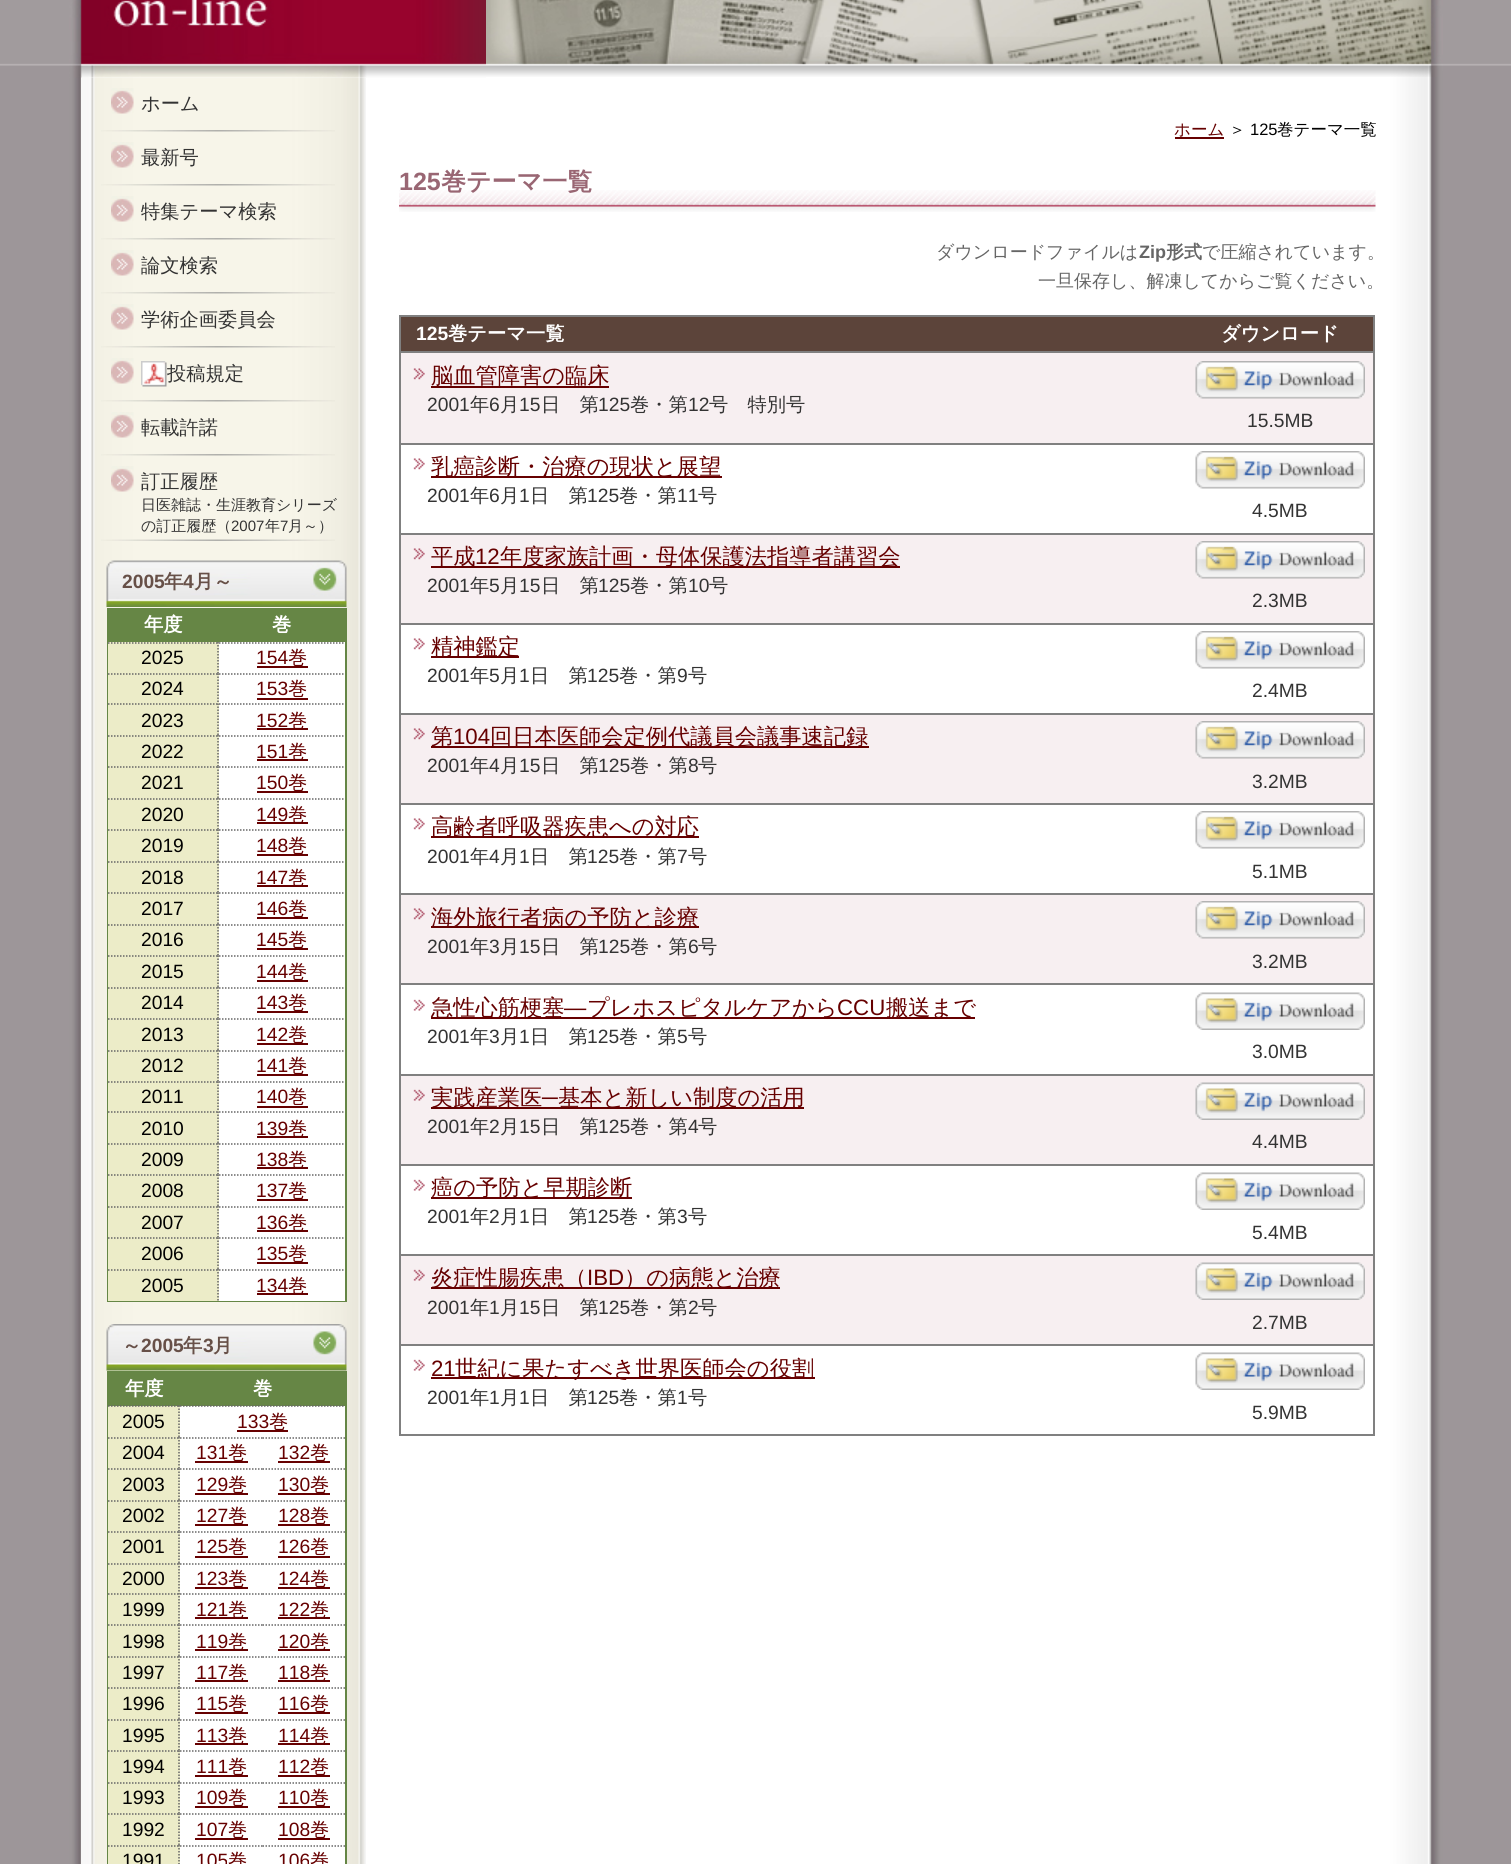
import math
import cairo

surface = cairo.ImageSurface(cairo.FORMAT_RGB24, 1511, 1864)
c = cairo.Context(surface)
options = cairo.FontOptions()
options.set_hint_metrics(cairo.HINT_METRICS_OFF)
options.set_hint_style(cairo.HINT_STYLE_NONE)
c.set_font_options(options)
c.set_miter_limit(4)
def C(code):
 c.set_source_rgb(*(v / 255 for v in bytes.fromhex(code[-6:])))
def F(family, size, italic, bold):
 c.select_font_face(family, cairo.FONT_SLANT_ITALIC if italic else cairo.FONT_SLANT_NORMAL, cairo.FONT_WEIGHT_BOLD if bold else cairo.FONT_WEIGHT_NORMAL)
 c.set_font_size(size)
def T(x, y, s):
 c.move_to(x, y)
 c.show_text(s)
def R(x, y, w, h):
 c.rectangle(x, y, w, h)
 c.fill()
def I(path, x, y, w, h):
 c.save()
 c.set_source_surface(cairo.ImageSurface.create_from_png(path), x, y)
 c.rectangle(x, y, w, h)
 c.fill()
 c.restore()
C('9d9699')
c.paint()
I('1.png',0,0,1511,66)
I('2.png',69,77,1374,1787)
I('3.png',486,0,957,77)
I('4.png',69,0,417,78)
I('5.png',81,77,285,1787)
I('6.png',101,130,234,2)
I('7.png',111,88,23,26)
F('WenQuanYi Zen Hei Medium',19.25,0,0)
C('333333')
T(141,110,'ホーム')
I('6.png',101,184,234,2)
I('7.png',111,142,23,26)
T(141,164,'最新号')
I('6.png',101,238,234,2)
I('7.png',111,196,23,26)
T(141,218,'特集テーマ検索')
I('6.png',101,292,234,2)
I('7.png',111,250,23,26)
T(141,272,'論文検索')
I('6.png',101,346,234,2)
I('7.png',111,304,23,26)
T(141,326,'学術企画委員会')
I('6.png',101,400,234,2)
I('7.png',111,358,23,26)
I('8.png',141,361,26,26)
T(167,380,'投稿規定')
I('6.png',101,454,234,2)
I('7.png',111,412,23,26)
T(141,434,'転載許諾')
I('9.png',101,539,234,2)
I('7.png',111,466,23,26)
T(141,488,'訂正履歴')
F('WenQuanYi Zen Hei Medium',15,0,0)
T(141,510,'日医雑誌・生涯教育シリーズ')
T(141,531,'の訂正履歴（')
F('Liberation Sans',15,0,0)
T(231,531,'2007')
F('WenQuanYi Zen Hei Medium',15,0,0)
T(265,531,'年')
F('Liberation Sans',15,0,0)
T(280,531,'7')
F('WenQuanYi Zen Hei Medium',15,0,0)
T(288,531,'月～）')
I('10.png',106,560,241,47)
F('Liberation Sans',19.25,0,1)
C('675048')
T(122,588,'2005')
F('WenQuanYi Zen Hei',19.25,0,1)
T(164,588,'年')
F('Liberation Sans',19.25,0,1)
T(183,588,'4')
F('WenQuanYi Zen Hei',19.25,0,1)
T(194,588,'月～')
c.rectangle(108,609,238,692)
C('658645')
c.stroke()
C('668645')
R(109,610,236,32)
C('ffffff')
T(144,631,'年度')
T(272,631,'巻')
C('ececc8')
R(108,642,111,659)
c.new_path()
c.move_to(108,643)
c.line_to(219,643)
C('666666')
c.set_line_width(1.5)
c.set_dash([1.5,1.5])
c.stroke()
c.new_path()
c.move_to(218,642)
c.line_to(218,673.5)
c.stroke()
F('Liberation Sans',19.25,0,0)
C('000000')
T(141,664,'2025')
C('ffffff')
R(219,642,126,659)
c.new_path()
c.move_to(219,643)
c.line_to(345,643)
C('666666')
c.stroke()
C('660000')
T(256,664,'154')
R(257,666,51,2)
F('WenQuanYi Zen Hei Medium',19.25,0,0)
T(288,664,'巻')
c.new_path()
c.move_to(108,674)
c.line_to(219,674)
C('666666')
c.stroke()
c.new_path()
c.move_to(218,673.5)
c.line_to(218,703.5)
c.stroke()
F('Liberation Sans',19.25,0,0)
C('000000')
T(141,695,'2024')
c.new_path()
c.move_to(219,674)
c.line_to(345,674)
C('666666')
c.stroke()
C('660000')
T(256,695,'153')
R(257,698,51,2)
F('WenQuanYi Zen Hei Medium',19.25,0,0)
T(288,695,'巻')
c.new_path()
c.move_to(108,704)
c.line_to(219,704)
C('666666')
c.stroke()
c.new_path()
c.move_to(218,703.5)
c.line_to(218,735)
c.stroke()
F('Liberation Sans',19.25,0,0)
C('000000')
T(141,727,'2023')
c.new_path()
c.move_to(219,704)
c.line_to(345,704)
C('666666')
c.stroke()
C('660000')
T(256,727,'152')
R(257,728,51,2)
F('WenQuanYi Zen Hei Medium',19.25,0,0)
T(288,727,'巻')
c.new_path()
c.move_to(108,736)
c.line_to(219,736)
C('666666')
c.stroke()
c.new_path()
c.move_to(218,735)
c.line_to(218,766.5)
c.stroke()
F('Liberation Sans',19.25,0,0)
C('000000')
T(141,758,'2022')
c.new_path()
c.move_to(219,736)
c.line_to(345,736)
C('666666')
c.stroke()
C('660000')
T(256,758,'151')
R(257,759,51,2)
F('WenQuanYi Zen Hei Medium',19.25,0,0)
T(288,758,'巻')
c.new_path()
c.move_to(108,767)
c.line_to(219,767)
C('666666')
c.stroke()
c.new_path()
c.move_to(218,766.5)
c.line_to(218,798)
c.stroke()
F('Liberation Sans',19.25,0,0)
C('000000')
T(141,789,'2021')
c.new_path()
c.move_to(219,767)
c.line_to(345,767)
C('666666')
c.stroke()
C('660000')
T(256,789,'150')
R(257,791,51,2)
F('WenQuanYi Zen Hei Medium',19.25,0,0)
T(288,789,'巻')
c.new_path()
c.move_to(108,799)
c.line_to(219,799)
C('666666')
c.stroke()
c.new_path()
c.move_to(218,798)
c.line_to(218,829.5)
c.stroke()
F('Liberation Sans',19.25,0,0)
C('000000')
T(141,821,'2020')
c.new_path()
c.move_to(219,799)
c.line_to(345,799)
C('666666')
c.stroke()
C('660000')
T(256,821,'149')
R(257,822,51,2)
F('WenQuanYi Zen Hei Medium',19.25,0,0)
T(288,821,'巻')
c.new_path()
c.move_to(108,830)
c.line_to(219,830)
C('666666')
c.stroke()
c.new_path()
c.move_to(218,829.5)
c.line_to(218,861)
c.stroke()
F('Liberation Sans',19.25,0,0)
C('000000')
T(141,852,'2019')
c.new_path()
c.move_to(219,830)
c.line_to(345,830)
C('666666')
c.stroke()
C('660000')
T(256,852,'148')
R(257,854,51,2)
F('WenQuanYi Zen Hei Medium',19.25,0,0)
T(288,852,'巻')
c.new_path()
c.move_to(108,862)
c.line_to(219,862)
C('666666')
c.stroke()
c.new_path()
c.move_to(218,861)
c.line_to(218,892.5)
c.stroke()
F('Liberation Sans',19.25,0,0)
C('000000')
T(141,884,'2018')
c.new_path()
c.move_to(219,862)
c.line_to(345,862)
C('666666')
c.stroke()
C('660000')
T(256,884,'147')
R(257,885,51,2)
F('WenQuanYi Zen Hei Medium',19.25,0,0)
T(288,884,'巻')
c.new_path()
c.move_to(108,893)
c.line_to(219,893)
C('666666')
c.stroke()
c.new_path()
c.move_to(218,892.5)
c.line_to(218,924)
c.stroke()
F('Liberation Sans',19.25,0,0)
C('000000')
T(141,915,'2017')
c.new_path()
c.move_to(219,893)
c.line_to(345,893)
C('666666')
c.stroke()
C('660000')
T(256,915,'146')
R(257,917,51,2)
F('WenQuanYi Zen Hei Medium',19.25,0,0)
T(288,915,'巻')
c.new_path()
c.move_to(108,925)
c.line_to(219,925)
C('666666')
c.stroke()
c.new_path()
c.move_to(218,924)
c.line_to(218,955.5)
c.stroke()
F('Liberation Sans',19.25,0,0)
C('000000')
T(141,946,'2016')
c.new_path()
c.move_to(219,925)
c.line_to(345,925)
C('666666')
c.stroke()
C('660000')
T(256,946,'145')
R(257,948,51,2)
F('WenQuanYi Zen Hei Medium',19.25,0,0)
T(288,946,'巻')
c.new_path()
c.move_to(108,956)
c.line_to(219,956)
C('666666')
c.stroke()
c.new_path()
c.move_to(218,955.5)
c.line_to(218,987)
c.stroke()
F('Liberation Sans',19.25,0,0)
C('000000')
T(141,978,'2015')
c.new_path()
c.move_to(219,956)
c.line_to(345,956)
C('666666')
c.stroke()
C('660000')
T(256,978,'144')
R(257,980,51,2)
F('WenQuanYi Zen Hei Medium',19.25,0,0)
T(288,978,'巻')
c.new_path()
c.move_to(108,988)
c.line_to(219,988)
C('666666')
c.stroke()
c.new_path()
c.move_to(218,987)
c.line_to(218,1018.5)
c.stroke()
F('Liberation Sans',19.25,0,0)
C('000000')
T(141,1009,'2014')
c.new_path()
c.move_to(219,988)
c.line_to(345,988)
C('666666')
c.stroke()
C('660000')
T(256,1009,'143')
R(257,1011,51,2)
F('WenQuanYi Zen Hei Medium',19.25,0,0)
T(288,1009,'巻')
c.new_path()
c.move_to(108,1019)
c.line_to(219,1019)
C('666666')
c.stroke()
c.new_path()
c.move_to(218,1018.5)
c.line_to(218,1050)
c.stroke()
F('Liberation Sans',19.25,0,0)
C('000000')
T(141,1041,'2013')
c.new_path()
c.move_to(219,1019)
c.line_to(345,1019)
C('666666')
c.stroke()
C('660000')
T(256,1041,'142')
R(257,1043,51,2)
F('WenQuanYi Zen Hei Medium',19.25,0,0)
T(288,1041,'巻')
c.new_path()
c.move_to(108,1051)
c.line_to(219,1051)
C('666666')
c.stroke()
c.new_path()
c.move_to(218,1050)
c.line_to(218,1081.5)
c.stroke()
F('Liberation Sans',19.25,0,0)
C('000000')
T(141,1072,'2012')
c.new_path()
c.move_to(219,1051)
c.line_to(345,1051)
C('666666')
c.stroke()
C('660000')
T(256,1072,'141')
R(257,1074,51,2)
F('WenQuanYi Zen Hei Medium',19.25,0,0)
T(288,1072,'巻')
c.new_path()
c.move_to(108,1082)
c.line_to(219,1082)
C('666666')
c.stroke()
c.new_path()
c.move_to(218,1081.5)
c.line_to(218,1111.5)
c.stroke()
F('Liberation Sans',19.25,0,0)
C('000000')
T(141,1103,'2011')
c.new_path()
c.move_to(219,1082)
c.line_to(345,1082)
C('666666')
c.stroke()
C('660000')
T(256,1103,'140')
R(257,1106,51,2)
F('WenQuanYi Zen Hei Medium',19.25,0,0)
T(288,1103,'巻')
c.new_path()
c.move_to(108,1112)
c.line_to(219,1112)
C('666666')
c.stroke()
c.new_path()
c.move_to(218,1111.5)
c.line_to(218,1143)
c.stroke()
F('Liberation Sans',19.25,0,0)
C('000000')
T(141,1135,'2010')
c.new_path()
c.move_to(219,1112)
c.line_to(345,1112)
C('666666')
c.stroke()
C('660000')
T(256,1135,'139')
R(257,1136,51,2)
F('WenQuanYi Zen Hei Medium',19.25,0,0)
T(288,1135,'巻')
c.new_path()
c.move_to(108,1144)
c.line_to(219,1144)
C('666666')
c.stroke()
c.new_path()
c.move_to(218,1143)
c.line_to(218,1174.5)
c.stroke()
F('Liberation Sans',19.25,0,0)
C('000000')
T(141,1166,'2009')
c.new_path()
c.move_to(219,1144)
c.line_to(345,1144)
C('666666')
c.stroke()
C('660000')
T(256,1166,'138')
R(257,1167,51,2)
F('WenQuanYi Zen Hei Medium',19.25,0,0)
T(288,1166,'巻')
c.new_path()
c.move_to(108,1175)
c.line_to(219,1175)
C('666666')
c.stroke()
c.new_path()
c.move_to(218,1174.5)
c.line_to(218,1206)
c.stroke()
F('Liberation Sans',19.25,0,0)
C('000000')
T(141,1197,'2008')
c.new_path()
c.move_to(219,1175)
c.line_to(345,1175)
C('666666')
c.stroke()
C('660000')
T(256,1197,'137')
R(257,1199,51,2)
F('WenQuanYi Zen Hei Medium',19.25,0,0)
T(288,1197,'巻')
c.new_path()
c.move_to(108,1207)
c.line_to(219,1207)
C('666666')
c.stroke()
c.new_path()
c.move_to(218,1206)
c.line_to(218,1237.5)
c.stroke()
F('Liberation Sans',19.25,0,0)
C('000000')
T(141,1229,'2007')
c.new_path()
c.move_to(219,1207)
c.line_to(345,1207)
C('666666')
c.stroke()
C('660000')
T(256,1229,'136')
R(257,1230,51,2)
F('WenQuanYi Zen Hei Medium',19.25,0,0)
T(288,1229,'巻')
c.new_path()
c.move_to(108,1238)
c.line_to(219,1238)
C('666666')
c.stroke()
c.new_path()
c.move_to(218,1237.5)
c.line_to(218,1269)
c.stroke()
F('Liberation Sans',19.25,0,0)
C('000000')
T(141,1260,'2006')
c.new_path()
c.move_to(219,1238)
c.line_to(345,1238)
C('666666')
c.stroke()
C('660000')
T(256,1260,'135')
R(257,1262,51,2)
F('WenQuanYi Zen Hei Medium',19.25,0,0)
T(288,1260,'巻')
c.new_path()
c.move_to(108,1270)
c.line_to(219,1270)
C('666666')
c.stroke()
c.new_path()
c.move_to(218,1269)
c.line_to(218,1300.5)
c.stroke()
F('Liberation Sans',19.25,0,0)
C('000000')
T(141,1292,'2005')
c.new_path()
c.move_to(219,1270)
c.line_to(345,1270)
C('666666')
c.stroke()
C('660000')
T(256,1292,'134')
R(257,1293,51,2)
F('WenQuanYi Zen Hei Medium',19.25,0,0)
T(288,1292,'巻')
I('11.png',106,1324,241,47)
F('WenQuanYi Zen Hei',19.25,0,1)
C('675048')
T(122,1352,'～')
F('Liberation Sans',19.25,0,1)
T(141,1352,'2005')
F('WenQuanYi Zen Hei',19.25,0,1)
T(183,1352,'年')
F('Liberation Sans',19.25,0,1)
T(203,1352,'3')
F('WenQuanYi Zen Hei',19.25,0,1)
T(213,1352,'月')
c.rectangle(108,1372,238,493)
C('658645')
c.set_line_width(2)
c.set_dash([])
c.stroke()
C('668645')
R(109,1373,236,33)
C('ffffff')
T(125,1395,'年度')
T(253,1395,'巻')
C('ececc8')
R(108,1406,72,458)
c.new_path()
c.move_to(108,1406)
c.line_to(180,1406)
C('666666')
c.set_line_width(1.5)
c.set_dash([1.5,1.5])
c.stroke()
c.new_path()
c.move_to(179,1405.5)
c.line_to(179,1437)
c.stroke()
F('Liberation Sans',19.25,0,0)
C('000000')
T(122,1428,'2005')
C('ffffff')
R(180,1406,165,31)
c.new_path()
c.move_to(180,1406)
c.line_to(345,1406)
C('666666')
c.stroke()
C('660000')
T(237,1428,'133')
R(237,1430,51,2)
F('WenQuanYi Zen Hei Medium',19.25,0,0)
T(269,1428,'巻')
c.new_path()
c.move_to(108,1438)
c.line_to(180,1438)
C('666666')
c.stroke()
c.new_path()
c.move_to(179,1437)
c.line_to(179,1468.5)
c.stroke()
F('Liberation Sans',19.25,0,0)
C('000000')
T(122,1459,'2004')
C('ffffff')
R(180,1437,165,32)
c.new_path()
c.move_to(180,1438)
c.line_to(262.5,1438)
C('666666')
c.stroke()
C('660000')
T(196,1459,'131')
R(195,1461,53,2)
F('WenQuanYi Zen Hei Medium',19.25,0,0)
T(228,1459,'巻')
c.new_path()
c.move_to(262.5,1438)
c.line_to(345,1438)
C('666666')
c.stroke()
F('Liberation Sans',19.25,0,0)
C('660000')
T(278,1459,'132')
R(278,1461,52,2)
F('WenQuanYi Zen Hei Medium',19.25,0,0)
T(310,1459,'巻')
c.new_path()
c.move_to(108,1469)
c.line_to(180,1469)
C('666666')
c.stroke()
c.new_path()
c.move_to(179,1468.5)
c.line_to(179,1500)
c.stroke()
F('Liberation Sans',19.25,0,0)
C('000000')
T(122,1491,'2003')
C('ffffff')
R(180,1469,165,31)
c.new_path()
c.move_to(180,1469)
c.line_to(262.5,1469)
C('666666')
c.stroke()
C('660000')
T(196,1491,'129')
R(195,1493,53,2)
F('WenQuanYi Zen Hei Medium',19.25,0,0)
T(228,1491,'巻')
c.new_path()
c.move_to(262.5,1469)
c.line_to(345,1469)
C('666666')
c.stroke()
F('Liberation Sans',19.25,0,0)
C('660000')
T(278,1491,'130')
R(278,1493,52,2)
F('WenQuanYi Zen Hei Medium',19.25,0,0)
T(310,1491,'巻')
c.new_path()
c.move_to(108,1501)
c.line_to(180,1501)
C('666666')
c.stroke()
c.new_path()
c.move_to(179,1500)
c.line_to(179,1531.5)
c.stroke()
F('Liberation Sans',19.25,0,0)
C('000000')
T(122,1522,'2002')
C('ffffff')
R(180,1500,165,32)
c.new_path()
c.move_to(180,1501)
c.line_to(262.5,1501)
C('666666')
c.stroke()
C('660000')
T(196,1522,'127')
R(195,1524,53,2)
F('WenQuanYi Zen Hei Medium',19.25,0,0)
T(228,1522,'巻')
c.new_path()
c.move_to(262.5,1501)
c.line_to(345,1501)
C('666666')
c.stroke()
F('Liberation Sans',19.25,0,0)
C('660000')
T(278,1522,'128')
R(278,1524,52,2)
F('WenQuanYi Zen Hei Medium',19.25,0,0)
T(310,1522,'巻')
c.new_path()
c.move_to(108,1532)
c.line_to(180,1532)
C('666666')
c.stroke()
c.new_path()
c.move_to(179,1531.5)
c.line_to(179,1563)
c.stroke()
F('Liberation Sans',19.25,0,0)
C('000000')
T(122,1553,'2001')
C('ffffff')
R(180,1532,165,31)
c.new_path()
c.move_to(180,1532)
c.line_to(262.5,1532)
C('666666')
c.stroke()
C('660000')
T(196,1553,'125')
R(195,1556,53,2)
F('WenQuanYi Zen Hei Medium',19.25,0,0)
T(228,1553,'巻')
c.new_path()
c.move_to(262.5,1532)
c.line_to(345,1532)
C('666666')
c.stroke()
F('Liberation Sans',19.25,0,0)
C('660000')
T(278,1553,'126')
R(278,1556,52,2)
F('WenQuanYi Zen Hei Medium',19.25,0,0)
T(310,1553,'巻')
c.new_path()
c.move_to(108,1564)
c.line_to(180,1564)
C('666666')
c.stroke()
c.new_path()
c.move_to(179,1563)
c.line_to(179,1593)
c.stroke()
F('Liberation Sans',19.25,0,0)
C('000000')
T(122,1585,'2000')
C('ffffff')
R(180,1563,165,30)
c.new_path()
c.move_to(180,1564)
c.line_to(262.5,1564)
C('666666')
c.stroke()
C('660000')
T(196,1585,'123')
R(195,1587,53,2)
F('WenQuanYi Zen Hei Medium',19.25,0,0)
T(228,1585,'巻')
c.new_path()
c.move_to(262.5,1564)
c.line_to(345,1564)
C('666666')
c.stroke()
F('Liberation Sans',19.25,0,0)
C('660000')
T(278,1585,'124')
R(278,1587,52,2)
F('WenQuanYi Zen Hei Medium',19.25,0,0)
T(310,1585,'巻')
c.new_path()
c.move_to(108,1594)
c.line_to(180,1594)
C('666666')
c.stroke()
c.new_path()
c.move_to(179,1593)
c.line_to(179,1624.5)
c.stroke()
F('Liberation Sans',19.25,0,0)
C('000000')
T(122,1616,'1999')
C('ffffff')
R(180,1593,165,32)
c.new_path()
c.move_to(180,1594)
c.line_to(262.5,1594)
C('666666')
c.stroke()
C('660000')
T(196,1616,'121')
R(195,1617,53,2)
F('WenQuanYi Zen Hei Medium',19.25,0,0)
T(228,1616,'巻')
c.new_path()
c.move_to(262.5,1594)
c.line_to(345,1594)
C('666666')
c.stroke()
F('Liberation Sans',19.25,0,0)
C('660000')
T(278,1616,'122')
R(278,1617,52,2)
F('WenQuanYi Zen Hei Medium',19.25,0,0)
T(310,1616,'巻')
c.new_path()
c.move_to(108,1625)
c.line_to(180,1625)
C('666666')
c.stroke()
c.new_path()
c.move_to(179,1624.5)
c.line_to(179,1656)
c.stroke()
F('Liberation Sans',19.25,0,0)
C('000000')
T(122,1648,'1998')
C('ffffff')
R(180,1625,165,31)
c.new_path()
c.move_to(180,1625)
c.line_to(262.5,1625)
C('666666')
c.stroke()
C('660000')
T(196,1648,'119')
R(195,1649,53,2)
F('WenQuanYi Zen Hei Medium',19.25,0,0)
T(228,1648,'巻')
c.new_path()
c.move_to(262.5,1625)
c.line_to(345,1625)
C('666666')
c.stroke()
F('Liberation Sans',19.25,0,0)
C('660000')
T(278,1648,'120')
R(278,1649,52,2)
F('WenQuanYi Zen Hei Medium',19.25,0,0)
T(310,1648,'巻')
c.new_path()
c.move_to(108,1657)
c.line_to(180,1657)
C('666666')
c.stroke()
c.new_path()
c.move_to(179,1656)
c.line_to(179,1687.5)
c.stroke()
F('Liberation Sans',19.25,0,0)
C('000000')
T(122,1679,'1997')
C('ffffff')
R(180,1656,165,32)
c.new_path()
c.move_to(180,1657)
c.line_to(262.5,1657)
C('666666')
c.stroke()
C('660000')
T(196,1679,'117')
R(195,1680,53,2)
F('WenQuanYi Zen Hei Medium',19.25,0,0)
T(228,1679,'巻')
c.new_path()
c.move_to(262.5,1657)
c.line_to(345,1657)
C('666666')
c.stroke()
F('Liberation Sans',19.25,0,0)
C('660000')
T(278,1679,'118')
R(278,1680,52,2)
F('WenQuanYi Zen Hei Medium',19.25,0,0)
T(310,1679,'巻')
c.new_path()
c.move_to(108,1688)
c.line_to(180,1688)
C('666666')
c.stroke()
c.new_path()
c.move_to(179,1687.5)
c.line_to(179,1719)
c.stroke()
F('Liberation Sans',19.25,0,0)
C('000000')
T(122,1710,'1996')
C('ffffff')
R(180,1688,165,31)
c.new_path()
c.move_to(180,1688)
c.line_to(262.5,1688)
C('666666')
c.stroke()
C('660000')
T(196,1710,'115')
R(195,1712,53,2)
F('WenQuanYi Zen Hei Medium',19.25,0,0)
T(228,1710,'巻')
c.new_path()
c.move_to(262.5,1688)
c.line_to(345,1688)
C('666666')
c.stroke()
F('Liberation Sans',19.25,0,0)
C('660000')
T(278,1710,'116')
R(278,1712,52,2)
F('WenQuanYi Zen Hei Medium',19.25,0,0)
T(310,1710,'巻')
c.new_path()
c.move_to(108,1720)
c.line_to(180,1720)
C('666666')
c.stroke()
c.new_path()
c.move_to(179,1719)
c.line_to(179,1750.5)
c.stroke()
F('Liberation Sans',19.25,0,0)
C('000000')
T(122,1742,'1995')
C('ffffff')
R(180,1719,165,32)
c.new_path()
c.move_to(180,1720)
c.line_to(262.5,1720)
C('666666')
c.stroke()
C('660000')
T(196,1742,'113')
R(195,1743,53,2)
F('WenQuanYi Zen Hei Medium',19.25,0,0)
T(228,1742,'巻')
c.new_path()
c.move_to(262.5,1720)
c.line_to(345,1720)
C('666666')
c.stroke()
F('Liberation Sans',19.25,0,0)
C('660000')
T(278,1742,'114')
R(278,1743,52,2)
F('WenQuanYi Zen Hei Medium',19.25,0,0)
T(310,1742,'巻')
c.new_path()
c.move_to(108,1751)
c.line_to(180,1751)
C('666666')
c.stroke()
c.new_path()
c.move_to(179,1750.5)
c.line_to(179,1782)
c.stroke()
F('Liberation Sans',19.25,0,0)
C('000000')
T(122,1773,'1994')
C('ffffff')
R(180,1751,165,31)
c.new_path()
c.move_to(180,1751)
c.line_to(262.5,1751)
C('666666')
c.stroke()
C('660000')
T(196,1773,'111')
R(195,1775,53,2)
F('WenQuanYi Zen Hei Medium',19.25,0,0)
T(228,1773,'巻')
c.new_path()
c.move_to(262.5,1751)
c.line_to(345,1751)
C('666666')
c.stroke()
F('Liberation Sans',19.25,0,0)
C('660000')
T(278,1773,'112')
R(278,1775,52,2)
F('WenQuanYi Zen Hei Medium',19.25,0,0)
T(310,1773,'巻')
c.new_path()
c.move_to(108,1783)
c.line_to(180,1783)
C('666666')
c.stroke()
c.new_path()
c.move_to(179,1782)
c.line_to(179,1813.5)
c.stroke()
F('Liberation Sans',19.25,0,0)
C('000000')
T(122,1804,'1993')
C('ffffff')
R(180,1782,165,32)
c.new_path()
c.move_to(180,1783)
c.line_to(262.5,1783)
C('666666')
c.stroke()
C('660000')
T(196,1804,'109')
R(195,1806,53,2)
F('WenQuanYi Zen Hei Medium',19.25,0,0)
T(228,1804,'巻')
c.new_path()
c.move_to(262.5,1783)
c.line_to(345,1783)
C('666666')
c.stroke()
F('Liberation Sans',19.25,0,0)
C('660000')
T(278,1804,'110')
R(278,1806,52,2)
F('WenQuanYi Zen Hei Medium',19.25,0,0)
T(310,1804,'巻')
c.new_path()
c.move_to(108,1814)
c.line_to(180,1814)
C('666666')
c.stroke()
c.new_path()
c.move_to(179,1813.5)
c.line_to(179,1845)
c.stroke()
F('Liberation Sans',19.25,0,0)
C('000000')
T(122,1836,'1992')
C('ffffff')
R(180,1814,165,31)
c.new_path()
c.move_to(180,1814)
c.line_to(262.5,1814)
C('666666')
c.stroke()
C('660000')
T(196,1836,'107')
R(195,1838,53,2)
F('WenQuanYi Zen Hei Medium',19.25,0,0)
T(228,1836,'巻')
c.new_path()
c.move_to(262.5,1814)
c.line_to(345,1814)
C('666666')
c.stroke()
F('Liberation Sans',19.25,0,0)
C('660000')
T(278,1836,'108')
R(278,1838,52,2)
F('WenQuanYi Zen Hei Medium',19.25,0,0)
T(310,1836,'巻')
c.new_path()
c.move_to(108,1846)
c.line_to(180,1846)
C('666666')
c.stroke()
c.new_path()
c.move_to(179,1845)
c.line_to(179,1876.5)
c.stroke()
F('Liberation Sans',19.25,0,0)
C('000000')
T(122,1867,'1991')
C('ffffff')
R(180,1845,165,19)
c.new_path()
c.move_to(180,1846)
c.line_to(262.5,1846)
C('666666')
c.stroke()
C('660000')
T(196,1867,'105')
F('WenQuanYi Zen Hei Medium',19.25,0,0)
T(228,1867,'巻')
c.new_path()
c.move_to(262.5,1846)
c.line_to(345,1846)
C('666666')
c.stroke()
F('Liberation Sans',19.25,0,0)
C('660000')
T(278,1867,'106')
F('WenQuanYi Zen Hei Medium',19.25,0,0)
T(310,1867,'巻')
F('WenQuanYi Zen Hei Medium',16.5,0,0)
T(1174,135,'ホーム')
R(1175,137,49,2)
C('000000')
T(1229,135,'＞')
F('Liberation Sans',16.5,0,0)
T(1250,135,'125')
F('WenQuanYi Zen Hei Medium',16.5,0,0)
T(1277,135,'巻テーマ一覧')
I('12.png',399,190,977,22)
F('Liberation Sans',25,0,1)
C('996673')
T(399,190,'125')
F('WenQuanYi Zen Hei',25,0,1)
T(441,190,'巻テーマ一覧')
F('WenQuanYi Zen Hei Medium',18,0,0)
C('666666')
T(936,258,'ダウンロードファイルは')
F('Liberation Sans',18,0,1)
T(1139,258,'Zip')
F('WenQuanYi Zen Hei',18,0,1)
T(1166,258,'形式')
F('WenQuanYi Zen Hei Medium',18,0,0)
T(1202,258,'で圧縮されています。')
T(1038,287,'一旦保存し、解凍してからご覧ください。')
C('f7eff1')
R(401,353,972,991)
C('808080')
R(399,315,975,2)
R(1373,315,2,1121)
R(399,1434,975,2)
R(399,315,2,1121)
C('5c443a')
R(401,317,972,34)
F('Liberation Sans',19.25,0,1)
C('ffffff')
T(416,340,'125')
F('WenQuanYi Zen Hei',19.25,0,1)
T(448,340,'巻テーマ一覧')
T(1221,340,'ダウンロード')
C('808080')
R(399,351,975,2)
I('13.png',413,368,12,12)
C('660000')
R(431,386,178,2)
F('WenQuanYi Zen Hei Medium',22.25,0,0)
T(431,383,'脳血管障害の臨床')
F('Liberation Sans',19.25,0,0)
C('333333')
T(427,411,'2001')
F('WenQuanYi Zen Hei Medium',19.25,0,0)
T(470,411,'年')
F('Liberation Sans',19.25,0,0)
T(489,411,'6')
F('WenQuanYi Zen Hei Medium',19.25,0,0)
T(500,411,'月')
F('Liberation Sans',19.25,0,0)
T(519,411,'15')
F('WenQuanYi Zen Hei Medium',19.25,0,0)
T(541,411,'日　第')
F('Liberation Sans',19.25,0,0)
T(598,411,'125')
F('WenQuanYi Zen Hei Medium',19.25,0,0)
T(630,411,'巻・第')
F('Liberation Sans',19.25,0,0)
T(688,411,'12')
F('WenQuanYi Zen Hei Medium',19.25,0,0)
T(709,411,'号　特別号')
I('14.png',1195,361,170,38)
F('Liberation Sans',19.25,0,0)
T(1247,427,'15.5MB')
C('ffffff')
R(401,445,972,88)
C('808080')
R(399,443,975,2)
I('15.png',413,458,12,12)
C('660000')
R(431,476,291,2)
F('WenQuanYi Zen Hei Medium',22.25,0,0)
T(431,474,'乳癌診断・治療の現状と展望')
F('Liberation Sans',19.25,0,0)
C('333333')
T(427,502,'2001')
F('WenQuanYi Zen Hei Medium',19.25,0,0)
T(470,502,'年')
F('Liberation Sans',19.25,0,0)
T(489,502,'6')
F('WenQuanYi Zen Hei Medium',19.25,0,0)
T(500,502,'月')
F('Liberation Sans',19.25,0,0)
T(519,502,'1')
F('WenQuanYi Zen Hei Medium',19.25,0,0)
T(530,502,'日　第')
F('Liberation Sans',19.25,0,0)
T(587,502,'125')
F('WenQuanYi Zen Hei Medium',19.25,0,0)
T(619,502,'巻・第')
F('Liberation Sans',19.25,0,0)
T(677,502,'11')
F('WenQuanYi Zen Hei Medium',19.25,0,0)
T(698,502,'号')
I('16.png',1195,451,170,38)
F('Liberation Sans',19.25,0,0)
T(1252,517,'4.5MB')
C('808080')
R(399,533,975,2)
I('13.png',413,548,12,12)
C('660000')
R(431,566,469,2)
F('WenQuanYi Zen Hei Medium',22.25,0,0)
T(431,564,'平成')
F('Liberation Sans',22.25,0,0)
T(475,564,'12')
F('WenQuanYi Zen Hei Medium',22.25,0,0)
T(500,564,'年度家族計画・母体保護法指導者講習会')
F('Liberation Sans',19.25,0,0)
C('333333')
T(427,592,'2001')
F('WenQuanYi Zen Hei Medium',19.25,0,0)
T(470,592,'年')
F('Liberation Sans',19.25,0,0)
T(489,592,'5')
F('WenQuanYi Zen Hei Medium',19.25,0,0)
T(500,592,'月')
F('Liberation Sans',19.25,0,0)
T(519,592,'15')
F('WenQuanYi Zen Hei Medium',19.25,0,0)
T(541,592,'日　第')
F('Liberation Sans',19.25,0,0)
T(598,592,'125')
F('WenQuanYi Zen Hei Medium',19.25,0,0)
T(630,592,'巻・第')
F('Liberation Sans',19.25,0,0)
T(688,592,'10')
F('WenQuanYi Zen Hei Medium',19.25,0,0)
T(709,592,'号')
I('14.png',1195,541,170,38)
F('Liberation Sans',19.25,0,0)
T(1252,607,'2.3MB')
C('ffffff')
R(401,625,972,88)
C('808080')
R(399,623,975,2)
I('15.png',413,638,12,12)
C('660000')
R(431,656,88,2)
F('WenQuanYi Zen Hei Medium',22.25,0,0)
T(431,654,'精神鑑定')
F('Liberation Sans',19.25,0,0)
C('333333')
T(427,682,'2001')
F('WenQuanYi Zen Hei Medium',19.25,0,0)
T(470,682,'年')
F('Liberation Sans',19.25,0,0)
T(489,682,'5')
F('WenQuanYi Zen Hei Medium',19.25,0,0)
T(500,682,'月')
F('Liberation Sans',19.25,0,0)
T(519,682,'1')
F('WenQuanYi Zen Hei Medium',19.25,0,0)
T(530,682,'日　第')
F('Liberation Sans',19.25,0,0)
T(587,682,'125')
F('WenQuanYi Zen Hei Medium',19.25,0,0)
T(619,682,'巻・第')
F('Liberation Sans',19.25,0,0)
T(677,682,'9')
F('WenQuanYi Zen Hei Medium',19.25,0,0)
T(688,682,'号')
I('16.png',1195,631,170,38)
F('Liberation Sans',19.25,0,0)
T(1252,697,'2.4MB')
C('808080')
R(399,713,975,2)
I('13.png',413,728,12,12)
C('660000')
R(431,746,438,2)
F('WenQuanYi Zen Hei Medium',22.25,0,0)
T(431,744,'第')
F('Liberation Sans',22.25,0,0)
T(453,744,'104')
F('WenQuanYi Zen Hei Medium',22.25,0,0)
T(490,744,'回日本医師会定例代議員会議事速記録')
F('Liberation Sans',19.25,0,0)
C('333333')
T(427,772,'2001')
F('WenQuanYi Zen Hei Medium',19.25,0,0)
T(470,772,'年')
F('Liberation Sans',19.25,0,0)
T(489,772,'4')
F('WenQuanYi Zen Hei Medium',19.25,0,0)
T(500,772,'月')
F('Liberation Sans',19.25,0,0)
T(519,772,'15')
F('WenQuanYi Zen Hei Medium',19.25,0,0)
T(541,772,'日　第')
F('Liberation Sans',19.25,0,0)
T(598,772,'125')
F('WenQuanYi Zen Hei Medium',19.25,0,0)
T(630,772,'巻・第')
F('Liberation Sans',19.25,0,0)
T(688,772,'8')
F('WenQuanYi Zen Hei Medium',19.25,0,0)
T(698,772,'号')
I('14.png',1195,721,170,38)
F('Liberation Sans',19.25,0,0)
T(1252,788,'3.2MB')
C('ffffff')
R(401,805,972,88)
C('808080')
R(399,803,975,2)
I('15.png',413,818,12,12)
C('660000')
R(431,836,268,2)
F('WenQuanYi Zen Hei Medium',22.25,0,0)
T(431,834,'高齢者呼吸器疾患への対応')
F('Liberation Sans',19.25,0,0)
C('333333')
T(427,863,'2001')
F('WenQuanYi Zen Hei Medium',19.25,0,0)
T(470,863,'年')
F('Liberation Sans',19.25,0,0)
T(489,863,'4')
F('WenQuanYi Zen Hei Medium',19.25,0,0)
T(500,863,'月')
F('Liberation Sans',19.25,0,0)
T(519,863,'1')
F('WenQuanYi Zen Hei Medium',19.25,0,0)
T(530,863,'日　第')
F('Liberation Sans',19.25,0,0)
T(587,863,'125')
F('WenQuanYi Zen Hei Medium',19.25,0,0)
T(619,863,'巻・第')
F('Liberation Sans',19.25,0,0)
T(677,863,'7')
F('WenQuanYi Zen Hei Medium',19.25,0,0)
T(688,863,'号')
I('16.png',1195,811,170,38)
F('Liberation Sans',19.25,0,0)
T(1252,878,'5.1MB')
C('808080')
R(399,893,975,2)
I('13.png',413,908,12,12)
C('660000')
R(431,926,268,2)
F('WenQuanYi Zen Hei Medium',22.25,0,0)
T(431,925,'海外旅行者病の予防と診療')
F('Liberation Sans',19.25,0,0)
C('333333')
T(427,953,'2001')
F('WenQuanYi Zen Hei Medium',19.25,0,0)
T(470,953,'年')
F('Liberation Sans',19.25,0,0)
T(489,953,'3')
F('WenQuanYi Zen Hei Medium',19.25,0,0)
T(500,953,'月')
F('Liberation Sans',19.25,0,0)
T(519,953,'15')
F('WenQuanYi Zen Hei Medium',19.25,0,0)
T(541,953,'日　第')
F('Liberation Sans',19.25,0,0)
T(598,953,'125')
F('WenQuanYi Zen Hei Medium',19.25,0,0)
T(630,953,'巻・第')
F('Liberation Sans',19.25,0,0)
T(688,953,'6')
F('WenQuanYi Zen Hei Medium',19.25,0,0)
T(698,953,'号')
I('14.png',1195,901,170,38)
F('Liberation Sans',19.25,0,0)
T(1252,968,'3.2MB')
C('ffffff')
R(401,985,972,89)
C('808080')
R(399,983,975,2)
I('17.png',413,999,12,12)
C('660000')
R(431,1017,544,2)
F('WenQuanYi Zen Hei Medium',22.25,0,0)
T(431,1015,'急性心筋梗塞')
F('Liberation Sans',22.25,0,0)
T(564,1015,'―')
F('WenQuanYi Zen Hei Medium',22.25,0,0)
T(587,1015,'プレホスピタルケアから')
F('Liberation Sans',22.25,0,0)
T(837,1015,'CCU')
F('WenQuanYi Zen Hei Medium',22.25,0,0)
T(886,1015,'搬送まで')
F('Liberation Sans',19.25,0,0)
C('333333')
T(427,1043,'2001')
F('WenQuanYi Zen Hei Medium',19.25,0,0)
T(470,1043,'年')
F('Liberation Sans',19.25,0,0)
T(489,1043,'3')
F('WenQuanYi Zen Hei Medium',19.25,0,0)
T(500,1043,'月')
F('Liberation Sans',19.25,0,0)
T(519,1043,'1')
F('WenQuanYi Zen Hei Medium',19.25,0,0)
T(530,1043,'日　第')
F('Liberation Sans',19.25,0,0)
T(587,1043,'125')
F('WenQuanYi Zen Hei Medium',19.25,0,0)
T(619,1043,'巻・第')
F('Liberation Sans',19.25,0,0)
T(677,1043,'5')
F('WenQuanYi Zen Hei Medium',19.25,0,0)
T(688,1043,'号')
I('18.png',1195,992,170,38)
F('Liberation Sans',19.25,0,0)
T(1252,1058,'3.0MB')
C('808080')
R(399,1074,975,2)
I('19.png',413,1089,12,12)
C('660000')
R(431,1107,373,2)
F('WenQuanYi Zen Hei Medium',22.25,0,0)
T(431,1105,'実践産業医')
F('Liberation Sans',22.25,0,0)
T(542,1105,'─')
F('WenQuanYi Zen Hei Medium',22.25,0,0)
T(558,1105,'基本と新しい制度の活用')
F('Liberation Sans',19.25,0,0)
C('333333')
T(427,1133,'2001')
F('WenQuanYi Zen Hei Medium',19.25,0,0)
T(470,1133,'年')
F('Liberation Sans',19.25,0,0)
T(489,1133,'2')
F('WenQuanYi Zen Hei Medium',19.25,0,0)
T(500,1133,'月')
F('Liberation Sans',19.25,0,0)
T(519,1133,'15')
F('WenQuanYi Zen Hei Medium',19.25,0,0)
T(541,1133,'日　第')
F('Liberation Sans',19.25,0,0)
T(598,1133,'125')
F('WenQuanYi Zen Hei Medium',19.25,0,0)
T(630,1133,'巻・第')
F('Liberation Sans',19.25,0,0)
T(688,1133,'4')
F('WenQuanYi Zen Hei Medium',19.25,0,0)
T(698,1133,'号')
I('20.png',1195,1082,170,38)
F('Liberation Sans',19.25,0,0)
T(1252,1148,'4.4MB')
C('ffffff')
R(401,1166,972,88)
C('808080')
R(399,1164,975,2)
I('17.png',413,1179,12,12)
C('660000')
R(431,1197,201,2)
F('WenQuanYi Zen Hei Medium',22.25,0,0)
T(431,1195,'癌の予防と早期診断')
F('Liberation Sans',19.25,0,0)
C('333333')
T(427,1223,'2001')
F('WenQuanYi Zen Hei Medium',19.25,0,0)
T(470,1223,'年')
F('Liberation Sans',19.25,0,0)
T(489,1223,'2')
F('WenQuanYi Zen Hei Medium',19.25,0,0)
T(500,1223,'月')
F('Liberation Sans',19.25,0,0)
T(519,1223,'1')
F('WenQuanYi Zen Hei Medium',19.25,0,0)
T(530,1223,'日　第')
F('Liberation Sans',19.25,0,0)
T(587,1223,'125')
F('WenQuanYi Zen Hei Medium',19.25,0,0)
T(619,1223,'巻・第')
F('Liberation Sans',19.25,0,0)
T(677,1223,'3')
F('WenQuanYi Zen Hei Medium',19.25,0,0)
T(688,1223,'号')
I('18.png',1195,1172,170,38)
F('Liberation Sans',19.25,0,0)
T(1252,1239,'5.4MB')
C('808080')
R(399,1254,975,2)
I('19.png',413,1269,12,12)
C('660000')
R(431,1287,349,2)
F('WenQuanYi Zen Hei Medium',22.25,0,0)
T(431,1285,'炎症性腸疾患（')
F('Liberation Sans',22.25,0,0)
T(587,1285,'IBD')
F('WenQuanYi Zen Hei Medium',22.25,0,0)
T(624,1285,'）の病態と治療')
F('Liberation Sans',19.25,0,0)
C('333333')
T(427,1314,'2001')
F('WenQuanYi Zen Hei Medium',19.25,0,0)
T(470,1314,'年')
F('Liberation Sans',19.25,0,0)
T(489,1314,'1')
F('WenQuanYi Zen Hei Medium',19.25,0,0)
T(500,1314,'月')
F('Liberation Sans',19.25,0,0)
T(519,1314,'15')
F('WenQuanYi Zen Hei Medium',19.25,0,0)
T(541,1314,'日　第')
F('Liberation Sans',19.25,0,0)
T(598,1314,'125')
F('WenQuanYi Zen Hei Medium',19.25,0,0)
T(630,1314,'巻・第')
F('Liberation Sans',19.25,0,0)
T(688,1314,'2')
F('WenQuanYi Zen Hei Medium',19.25,0,0)
T(698,1314,'号')
I('20.png',1195,1262,170,38)
F('Liberation Sans',19.25,0,0)
T(1252,1329,'2.7MB')
C('808080')
R(399,1344,975,2)
I('17.png',413,1359,12,12)
F('Liberation Sans',22.25,0,0)
C('660000')
T(431,1376,'21')
R(431,1377,384,2)
F('WenQuanYi Zen Hei Medium',22.25,0,0)
T(455,1376,'世紀に果たすべき世界医師会の役割')
F('Liberation Sans',19.25,0,0)
C('333333')
T(427,1404,'2001')
F('WenQuanYi Zen Hei Medium',19.25,0,0)
T(470,1404,'年')
F('Liberation Sans',19.25,0,0)
T(489,1404,'1')
F('WenQuanYi Zen Hei Medium',19.25,0,0)
T(500,1404,'月')
F('Liberation Sans',19.25,0,0)
T(519,1404,'1')
F('WenQuanYi Zen Hei Medium',19.25,0,0)
T(530,1404,'日　第')
F('Liberation Sans',19.25,0,0)
T(587,1404,'125')
F('WenQuanYi Zen Hei Medium',19.25,0,0)
T(619,1404,'巻・第')
F('Liberation Sans',19.25,0,0)
T(677,1404,'1')
F('WenQuanYi Zen Hei Medium',19.25,0,0)
T(688,1404,'号')
I('18.png',1195,1352,170,38)
F('Liberation Sans',19.25,0,0)
T(1252,1419,'5.9MB')
surface.write_to_png('o.png')
